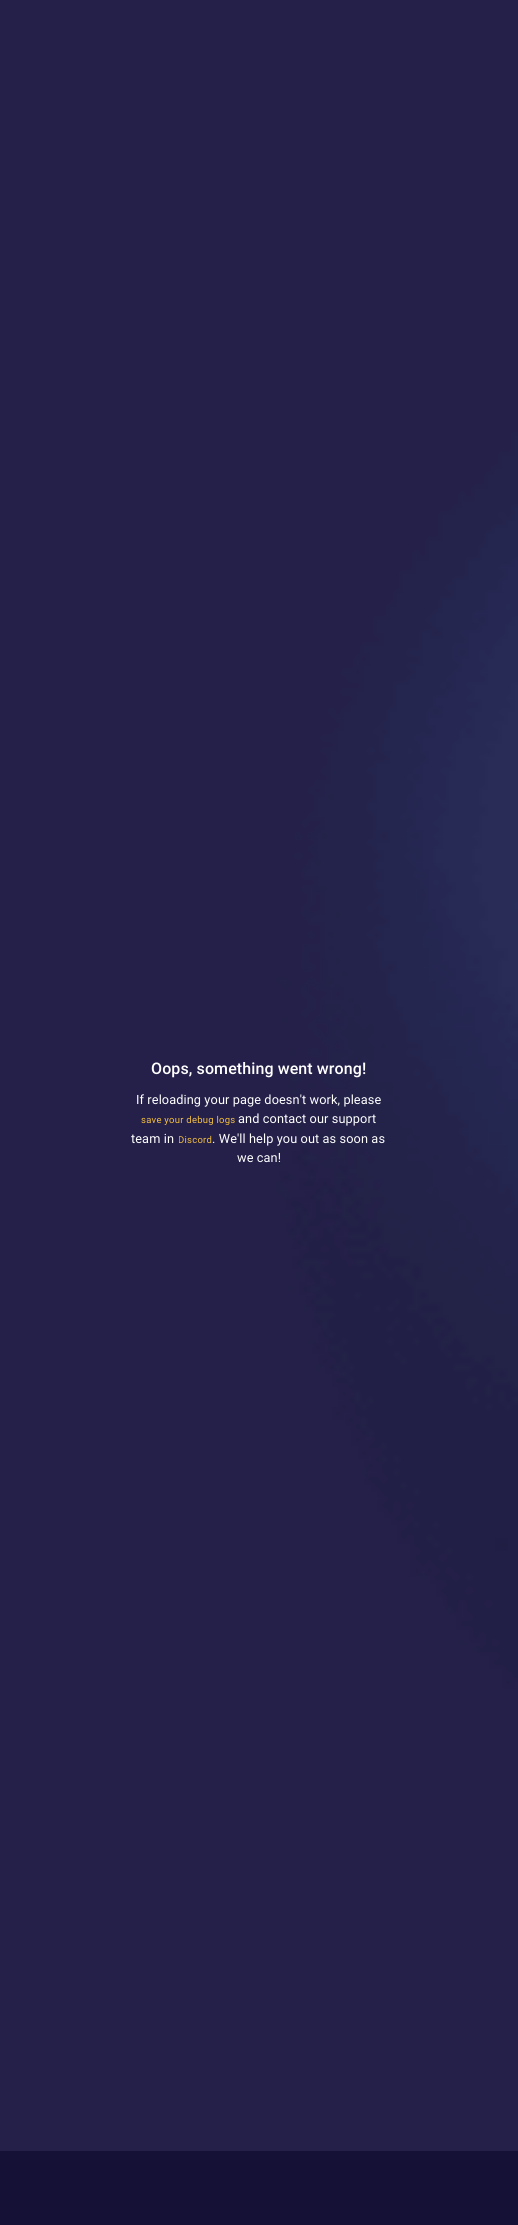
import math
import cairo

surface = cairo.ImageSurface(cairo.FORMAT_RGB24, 518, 2225)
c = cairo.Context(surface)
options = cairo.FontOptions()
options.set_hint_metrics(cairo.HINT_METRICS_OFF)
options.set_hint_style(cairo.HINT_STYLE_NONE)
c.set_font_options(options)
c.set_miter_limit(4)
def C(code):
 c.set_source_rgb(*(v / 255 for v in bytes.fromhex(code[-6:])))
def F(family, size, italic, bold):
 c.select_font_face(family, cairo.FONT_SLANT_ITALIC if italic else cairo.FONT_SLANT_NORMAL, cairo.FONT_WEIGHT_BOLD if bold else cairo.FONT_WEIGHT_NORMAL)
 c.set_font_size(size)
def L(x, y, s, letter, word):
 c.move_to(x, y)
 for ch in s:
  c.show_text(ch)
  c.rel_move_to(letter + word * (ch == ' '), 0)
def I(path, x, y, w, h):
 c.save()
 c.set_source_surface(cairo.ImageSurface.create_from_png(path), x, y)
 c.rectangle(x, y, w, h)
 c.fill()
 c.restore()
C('151136')
c.paint()
I('1.png',0,0,518,2151)
F('Roboto Medium',16,0,0)
C('ffffff')
L(151,1074,'Oops, something went wrong!',.1,0)
F('Roboto',12.75,0,0)
L(136,1104,'If reloading your page doesn\'t work, please',.1,0)
F('Roboto',9.5,0,0)
C('f2bf43')
L(141,1123,'save your debug logs',.25,0)
F('Roboto',12.75,0,0)
C('ffffff')
L(238,1123,'and contact our support',.1,0)
L(131,1143,'team in',.1,0)
c.save()
c.rectangle(179,1132,34,16)
c.clip()
F('Roboto',9.5,0,0)
C('f2bf43')
L(178,1143,'Discord',.25,0)
c.restore()
L(212,1143,'. We\'ll help you out as soon as',.1,0)
L(237,1162,'we can!',.1,0)
surface.write_to_png('o.png')
